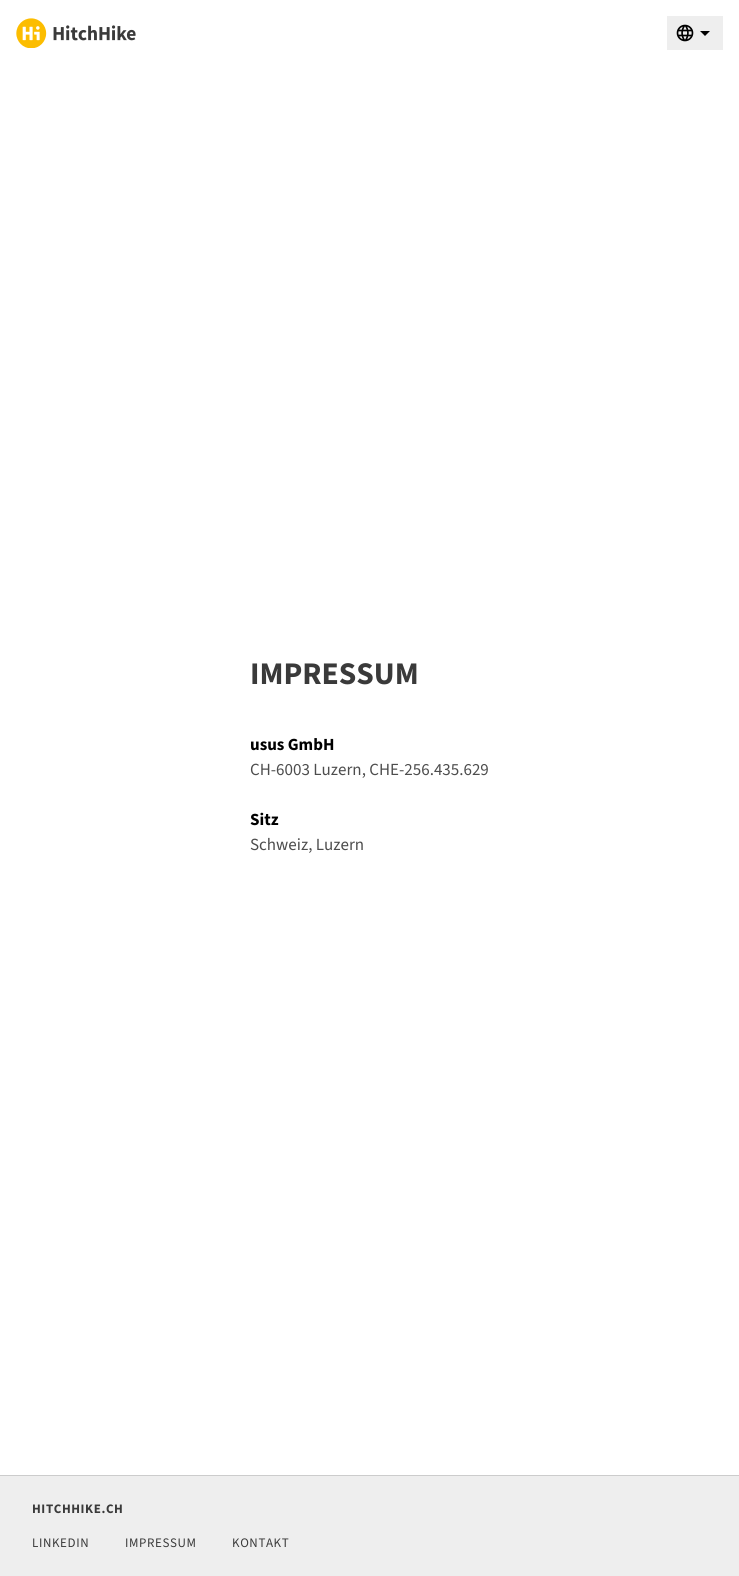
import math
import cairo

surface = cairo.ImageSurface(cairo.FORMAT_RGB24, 739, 1576)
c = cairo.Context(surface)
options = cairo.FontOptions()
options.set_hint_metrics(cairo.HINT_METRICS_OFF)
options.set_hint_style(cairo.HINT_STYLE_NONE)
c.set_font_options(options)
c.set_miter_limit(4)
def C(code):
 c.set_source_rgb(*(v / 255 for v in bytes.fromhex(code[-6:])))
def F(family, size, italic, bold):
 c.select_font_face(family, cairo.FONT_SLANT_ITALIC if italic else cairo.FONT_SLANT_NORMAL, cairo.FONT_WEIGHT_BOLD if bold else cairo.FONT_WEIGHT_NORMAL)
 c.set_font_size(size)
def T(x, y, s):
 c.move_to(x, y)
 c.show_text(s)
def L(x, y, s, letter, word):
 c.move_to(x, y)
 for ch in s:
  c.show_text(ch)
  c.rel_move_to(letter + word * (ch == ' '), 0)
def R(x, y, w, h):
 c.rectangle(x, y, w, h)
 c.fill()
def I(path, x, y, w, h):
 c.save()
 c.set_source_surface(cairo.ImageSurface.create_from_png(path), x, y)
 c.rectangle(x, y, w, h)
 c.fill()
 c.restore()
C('ffffff')
c.paint()
I('1.png',16,18,120,30)
C('eeeeee')
R(667,16,56,34)
I('2.png',676,24,18,18)
C('000000')
c.new_path()
c.move_to(700,31)
c.line_to(705,36)
c.line_to(710,31)
c.close_path()
c.fill()
F('Source Sans 3',31.5,0,1)
C('3a3a3a')
T(250,684,'IMPRESSUM')
F('Source Sans 3',17,0,1)
C('000000')
T(250,750,'usus GmbH')
F('Source Sans 3',17,0,0)
C('4d4d4d')
T(250,775,'CH-6003 Luzern, CHE-256.435.629')
F('Source Sans 3',17,0,1)
C('000000')
T(250,825,'Sitz')
F('Source Sans 3',17,0,0)
C('4d4d4d')
T(250,850,'Schweiz, Luzern')
C('eeeeee')
R(0,1476,739,100)
C('cccccc')
R(0,1475,739,1)
F('Source Sans 3',13,0,1)
C('3a3a3a')
L(32,1513,'HITCHHIKE.CH',.6,0)
F('Source Sans 3',13,0,0)
L(32,1547,'LINKEDIN',.6,0)
L(125,1547,'IMPRESSUM',.6,0)
L(232,1547,'KONTAKT',.6,0)
surface.write_to_png('o.png')
